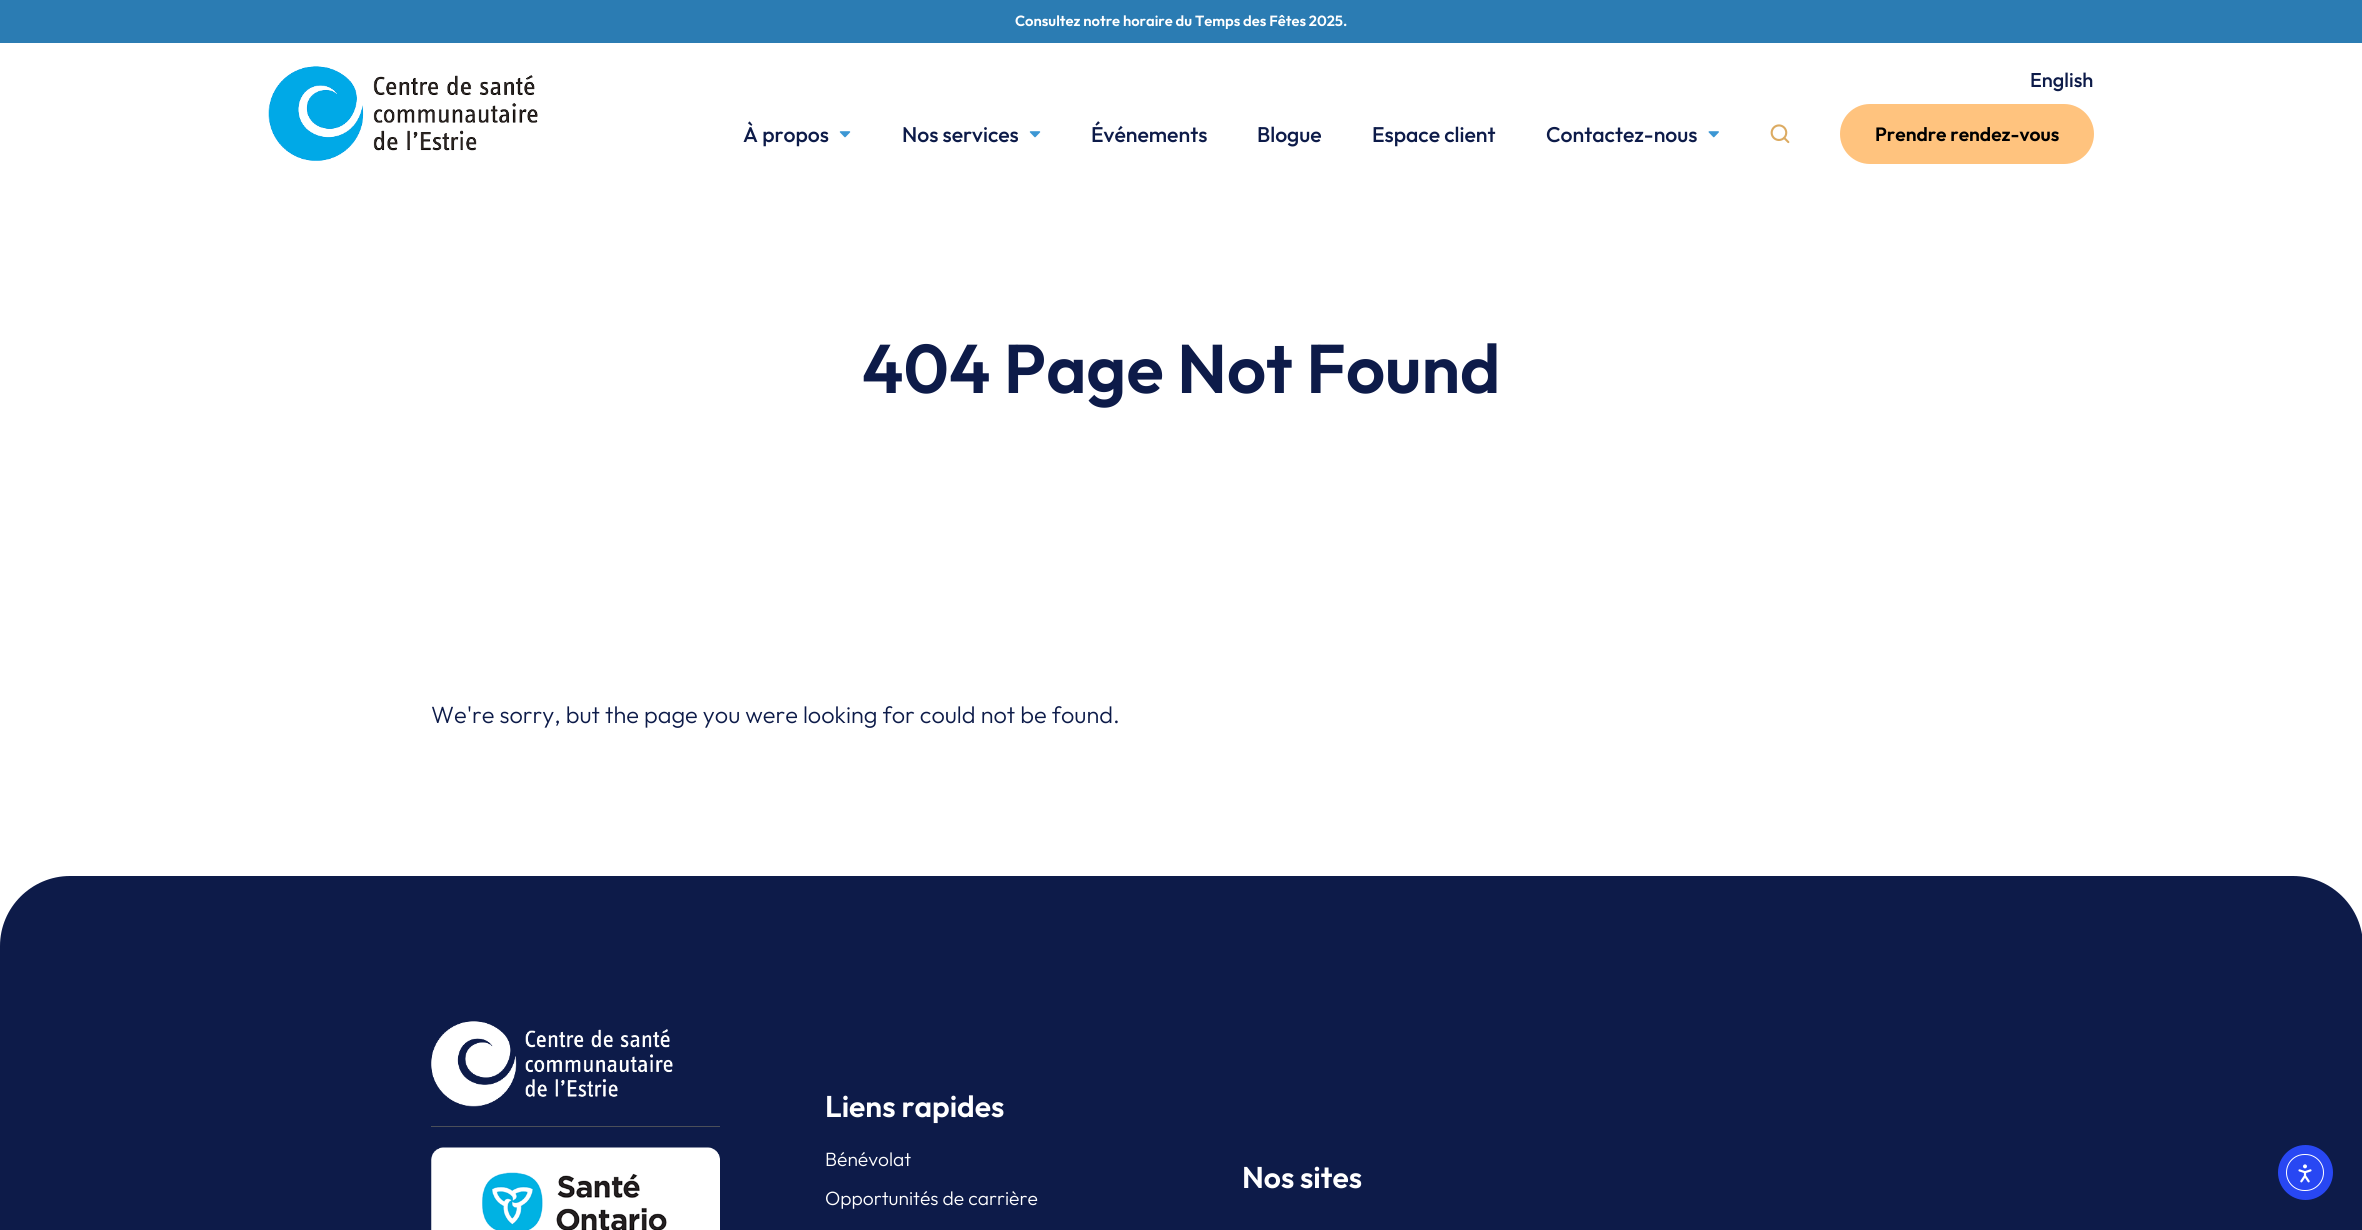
import math
import cairo

surface = cairo.ImageSurface(cairo.FORMAT_RGB24, 2362, 1230)
c = cairo.Context(surface)
options = cairo.FontOptions()
options.set_hint_metrics(cairo.HINT_METRICS_OFF)
options.set_hint_style(cairo.HINT_STYLE_NONE)
c.set_font_options(options)
c.set_miter_limit(4)
def C(code):
 c.set_source_rgb(*(v / 255 for v in bytes.fromhex(code[-6:])))
def F(family, size, italic, bold):
 c.select_font_face(family, cairo.FONT_SLANT_ITALIC if italic else cairo.FONT_SLANT_NORMAL, cairo.FONT_WEIGHT_BOLD if bold else cairo.FONT_WEIGHT_NORMAL)
 c.set_font_size(size)
def T(x, y, s):
 c.move_to(x, y)
 c.show_text(s)
def R(x, y, w, h):
 c.rectangle(x, y, w, h)
 c.fill()
def Q(x, y, w, h, r):
 c.new_sub_path()
 for i, (u, v) in enumerate([(x + w - r, y + h - r), (x + r, y + h - r), (x + r, y + r), (x + w - r, y + r)]):
  c.arc(u, v, r, i * math.pi / 2, (i + 1) * math.pi / 2)
 c.close_path()
def I(path, x, y, w, h):
 c.save()
 c.set_source_surface(cairo.ImageSurface.create_from_png(path), x, y)
 c.rectangle(x, y, w, h)
 c.fill()
 c.restore()
C('ffffff')
c.paint()
C('2b7cb3')
R(0,0,2362,43)
F('Outfit SemiBold',14.75,0,0)
C('ffffff')
T(1015,26,'Consultez notre horaire du Temps des Fêtes 2025.')
I('1.png',268,66,270,95)
F('Outfit Medium',20,0,0)
C('0d1b49')
T(2030,87,'English')
F('Outfit Medium',21.25,0,0)
T(743,142,'À propos')
I('2.png',839,131,12,7)
T(902,142,'Nos services')
I('2.png',1029,131,12,7)
T(1091,142,'Événements')
T(1257,142,'Blogue')
T(1372,142,'Espace client')
T(1546,142,'Contactez-nous')
I('3.png',1708,131,11,7)
I('4.png',1770,124,20,20)
C('ffc37e')
Q(1840,104,254,60,30)
c.fill()
F('Outfit SemiBold',19.25,0,0)
C('000000')
T(1875,141,'Prendre rendez-vous')
F('Outfit SemiBold',68.75,0,0)
C('0d1b49')
T(862,393,'404 Page Not Found')
F('Outfit Light',23.5,0,0)
T(431,723,'We\'re sorry, but the page you were looking for could not be found.')
c.new_path()
c.move_to(70,876)
c.line_to(2293,876)
c.curve_to(2331.5,876,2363,907.5,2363,946)
c.line_to(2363,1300)
c.line_to(0,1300)
c.line_to(0,946)
c.curve_to(0,907.5,31.5,876,70,876)
c.close_path()
c.fill()
C('4b4f59')
R(431,1126,289,1)
I('5.png',431,1021,242,86)
I('6.png',431,1147,289,83)
F('Outfit SemiBold',30,0,0)
C('ffffff')
T(825,1117,'Liens rapides')
F('Outfit Light',19.25,0,0)
T(825,1166,'Bénévolat')
T(825,1205,'Opportunités de carrière')
F('Outfit SemiBold',30,0,0)
T(1242,1188,'Nos sites')
C('2847f3')
c.new_path()
c.arc(2305.5,1172.5,27.5,0,2 * math.pi)
c.fill()
Q(2286.5,1154.5,37,36,18)
C('ffffff')
c.set_line_width(1)
c.stroke()
I('7.png',2298,1164,14,19)
surface.write_to_png('o.png')
